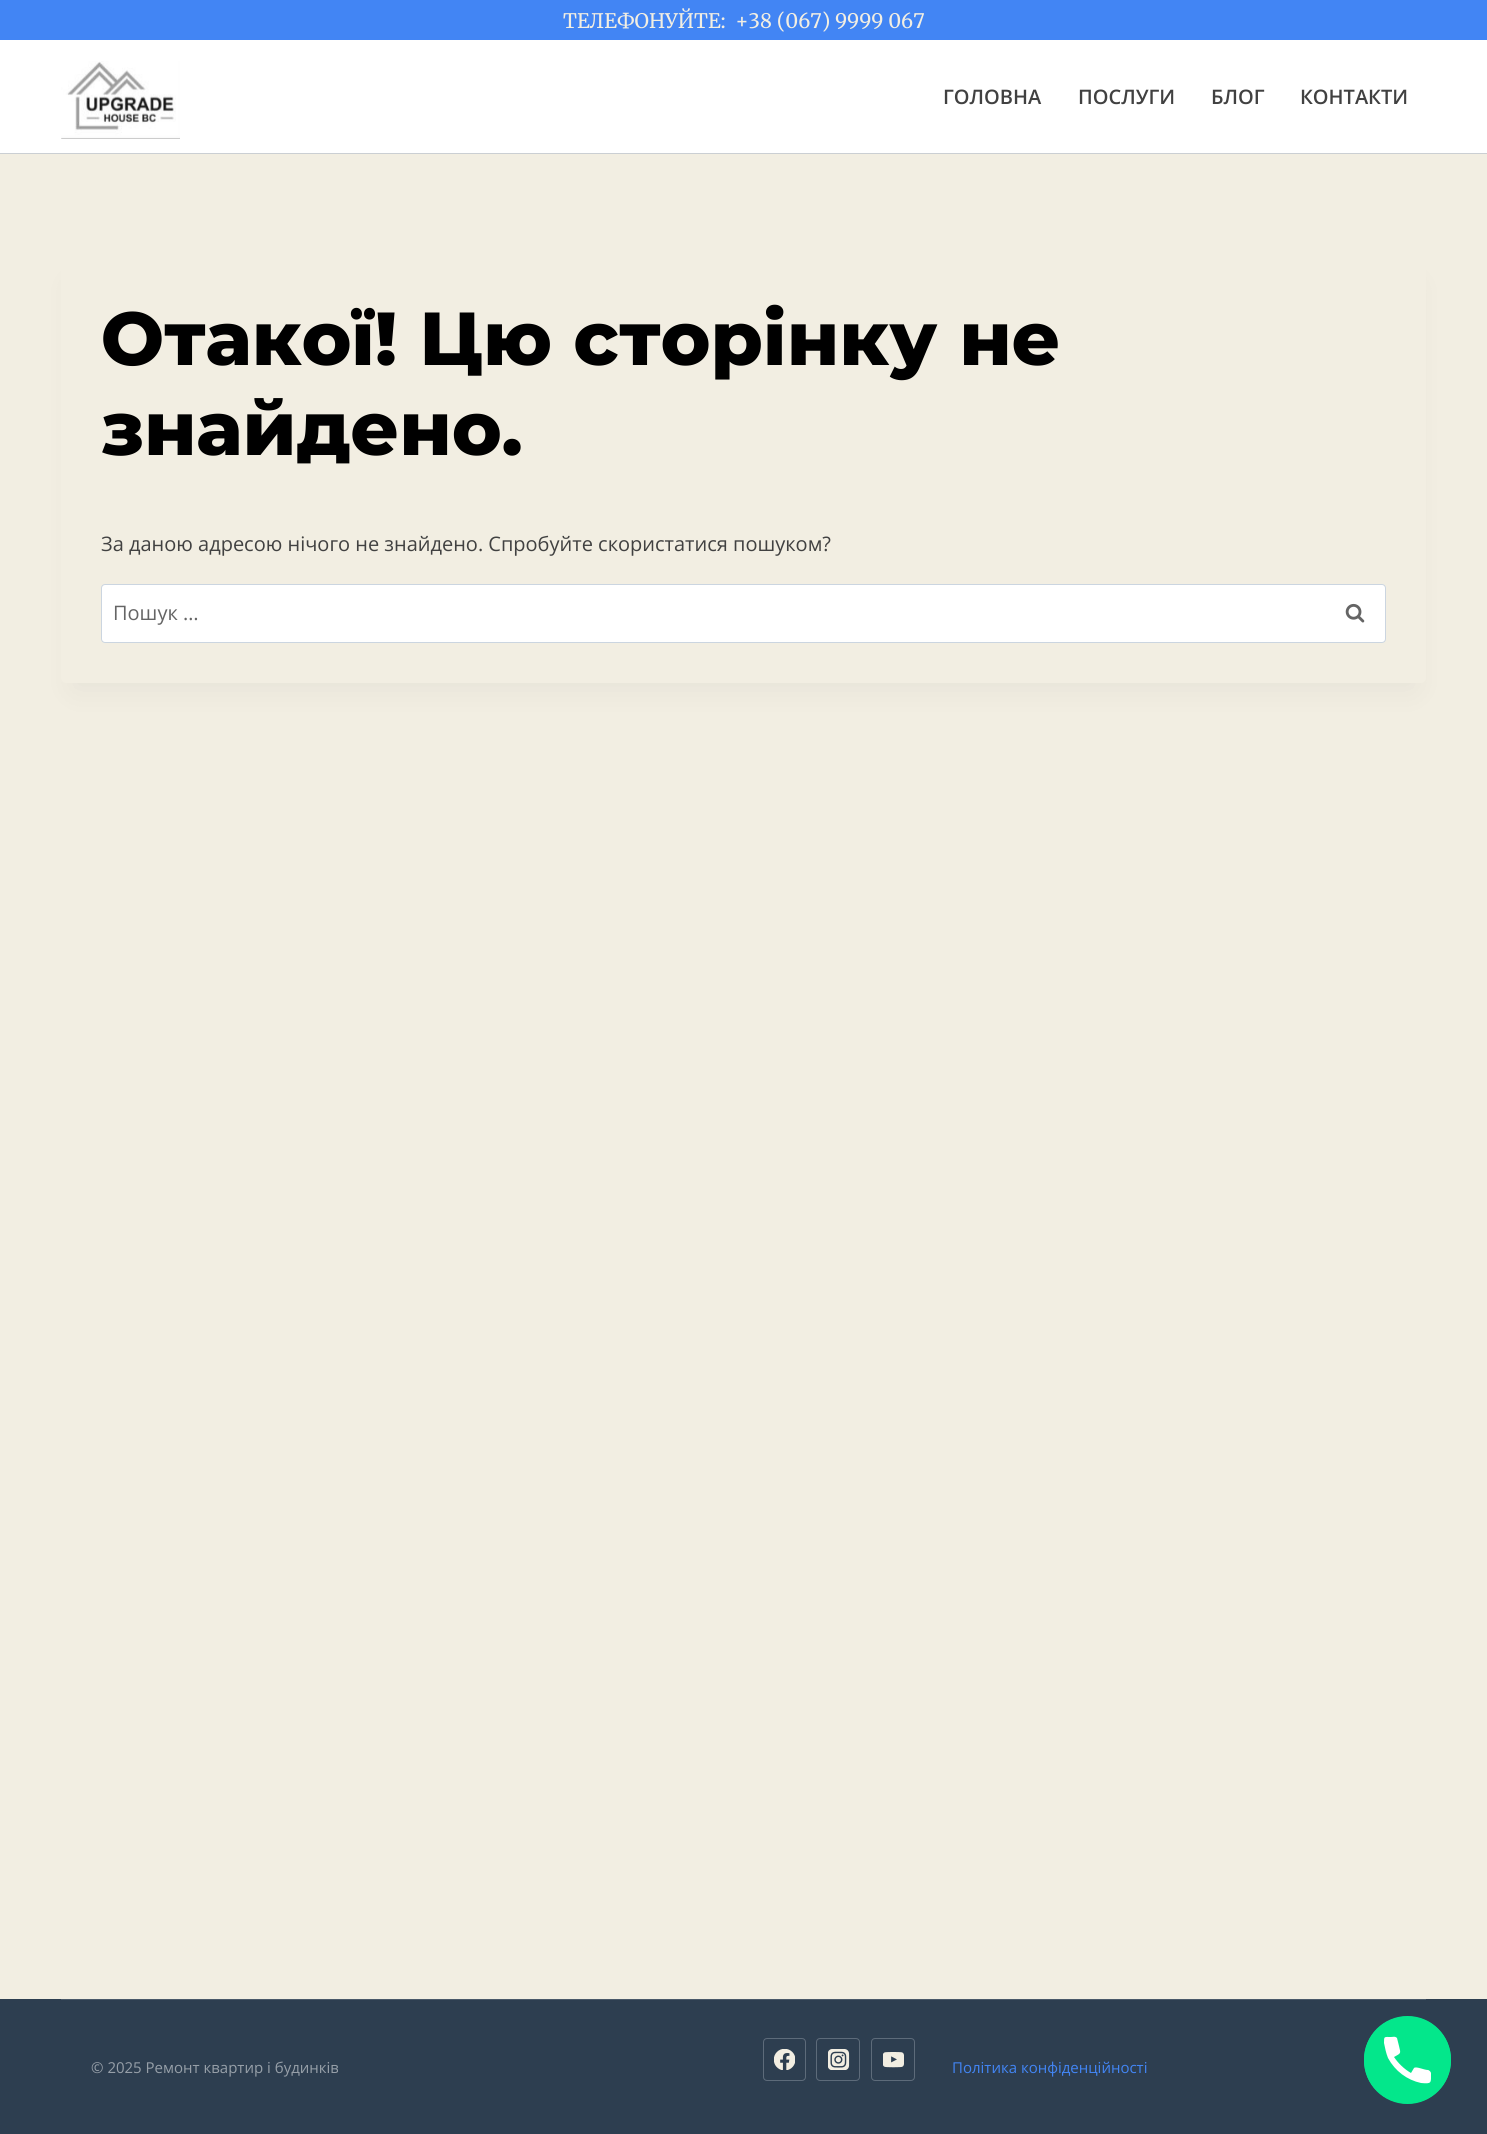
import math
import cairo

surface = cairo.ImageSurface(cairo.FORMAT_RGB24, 1487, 2134)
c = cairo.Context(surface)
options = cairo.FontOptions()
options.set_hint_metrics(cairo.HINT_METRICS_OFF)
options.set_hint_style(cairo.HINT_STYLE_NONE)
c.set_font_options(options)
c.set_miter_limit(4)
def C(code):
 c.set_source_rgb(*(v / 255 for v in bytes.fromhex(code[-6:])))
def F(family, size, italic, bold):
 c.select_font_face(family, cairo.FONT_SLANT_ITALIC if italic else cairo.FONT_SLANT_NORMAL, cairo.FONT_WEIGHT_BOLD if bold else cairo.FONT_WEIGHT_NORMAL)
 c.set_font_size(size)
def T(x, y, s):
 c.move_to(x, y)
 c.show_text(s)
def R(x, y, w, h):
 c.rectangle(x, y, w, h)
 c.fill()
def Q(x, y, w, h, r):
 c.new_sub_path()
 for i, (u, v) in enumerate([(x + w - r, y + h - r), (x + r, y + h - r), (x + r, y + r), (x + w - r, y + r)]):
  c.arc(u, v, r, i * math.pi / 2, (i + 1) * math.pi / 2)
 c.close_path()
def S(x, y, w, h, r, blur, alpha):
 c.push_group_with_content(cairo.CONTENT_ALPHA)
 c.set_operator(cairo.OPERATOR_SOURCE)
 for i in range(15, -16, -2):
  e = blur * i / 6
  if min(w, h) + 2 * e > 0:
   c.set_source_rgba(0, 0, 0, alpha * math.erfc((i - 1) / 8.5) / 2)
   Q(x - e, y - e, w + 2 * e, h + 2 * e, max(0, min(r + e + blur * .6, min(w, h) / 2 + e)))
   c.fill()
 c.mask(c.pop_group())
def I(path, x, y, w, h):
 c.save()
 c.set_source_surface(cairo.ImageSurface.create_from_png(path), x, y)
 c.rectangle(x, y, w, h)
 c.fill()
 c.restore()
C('f2eee2')
c.paint()
C('ffffff')
R(0,40,1487,113)
C('4285f4')
R(0,0,1487,40)
F('Merriweather Light',20,0,0)
C('f2eee2')
T(563,28,'ТЕЛЕФОНУЙТЕ:  +38 (067) 9999 067')
C('cbcfd3')
R(0,153,1487,1)
I('1.png',61,61,119,78)
F('Open Sans SemiBold',20,0,0)
C('414141')
T(943,104,'ГОЛОВНА')
T(1078,104,'ПОСЛУГИ')
T(1211,104,'БЛОГ')
T(1300,104,'КОНТАКТИ')
C('000000')
S(74,285,1340,404,0,15.5,.05)
C('f2eee2')
Q(61,254,1365,429,5)
c.fill()
F('Montserrat ExtraBold',75,0,0)
C('000000')
T(101,365,'Отакої! Цю сторінку не')
T(101,455,'знайдено.')
F('Open Sans',20,0,0)
C('414141')
T(101,551,'За даною адресою нічого не знайдено. Спробуйте скористатися пошуком?')
C('ffffff')
Q(101.5,584.5,1284,58,3.5)
c.fill_preserve()
C('cbd5e0')
c.set_line_width(1)
c.stroke()
C('656565')
T(113,620,'Пошук …')
I('2.png',1345,603,20,20)
C('2d3e50')
R(0,1999,1487,135)
C('4a5969')
R(61,1999,1365,1)
F('Open Sans',15,0,0)
C('969fa8')
T(91,2073,'© 2025 Ремонт квартир і будинків')
Q(763.5,2038.5,42,42,3.5)
C('5d6b7a')
c.stroke()
I('3.png',774,2049,21,21)
Q(816.5,2038.5,43,42,3.5)
c.stroke()
I('4.png',828,2049,22,21)
Q(871.5,2038.5,43,42,3.5)
c.stroke()
I('5.png',883,2052,21,16)
C('4285f4')
T(952,2073,'Політика конфіденційності')
C('03e78b')
Q(1364,2016,87,88,43.5)
c.fill()
c.arc(1407.5,2060,43.5,0,2 * math.pi)
c.fill()
C('ffffff')
c.new_path()
c.move_to(1428,2070)
c.curve_to(1424,2070,1416,2066,1414,2068)
c.line_to(1411,2073)
c.curve_to(1404,2069,1398,2063,1394,2057)
c.curve_to(1401,2053,1401,2054,1399,2046)
c.line_to(1397,2038)
c.curve_to(1395,2036,1393,2037,1391,2037)
c.curve_to(1384,2037,1384,2036,1384,2043)
c.curve_to(1385,2048,1386,2053,1388,2058)
c.curve_to(1395,2071,1407,2080,1421,2083)
c.curve_to(1432,2084,1431,2083,1431,2073)
c.curve_to(1431,2072,1429,2070,1428,2070)
c.close_path()
c.fill()
surface.write_to_png('o.png')
